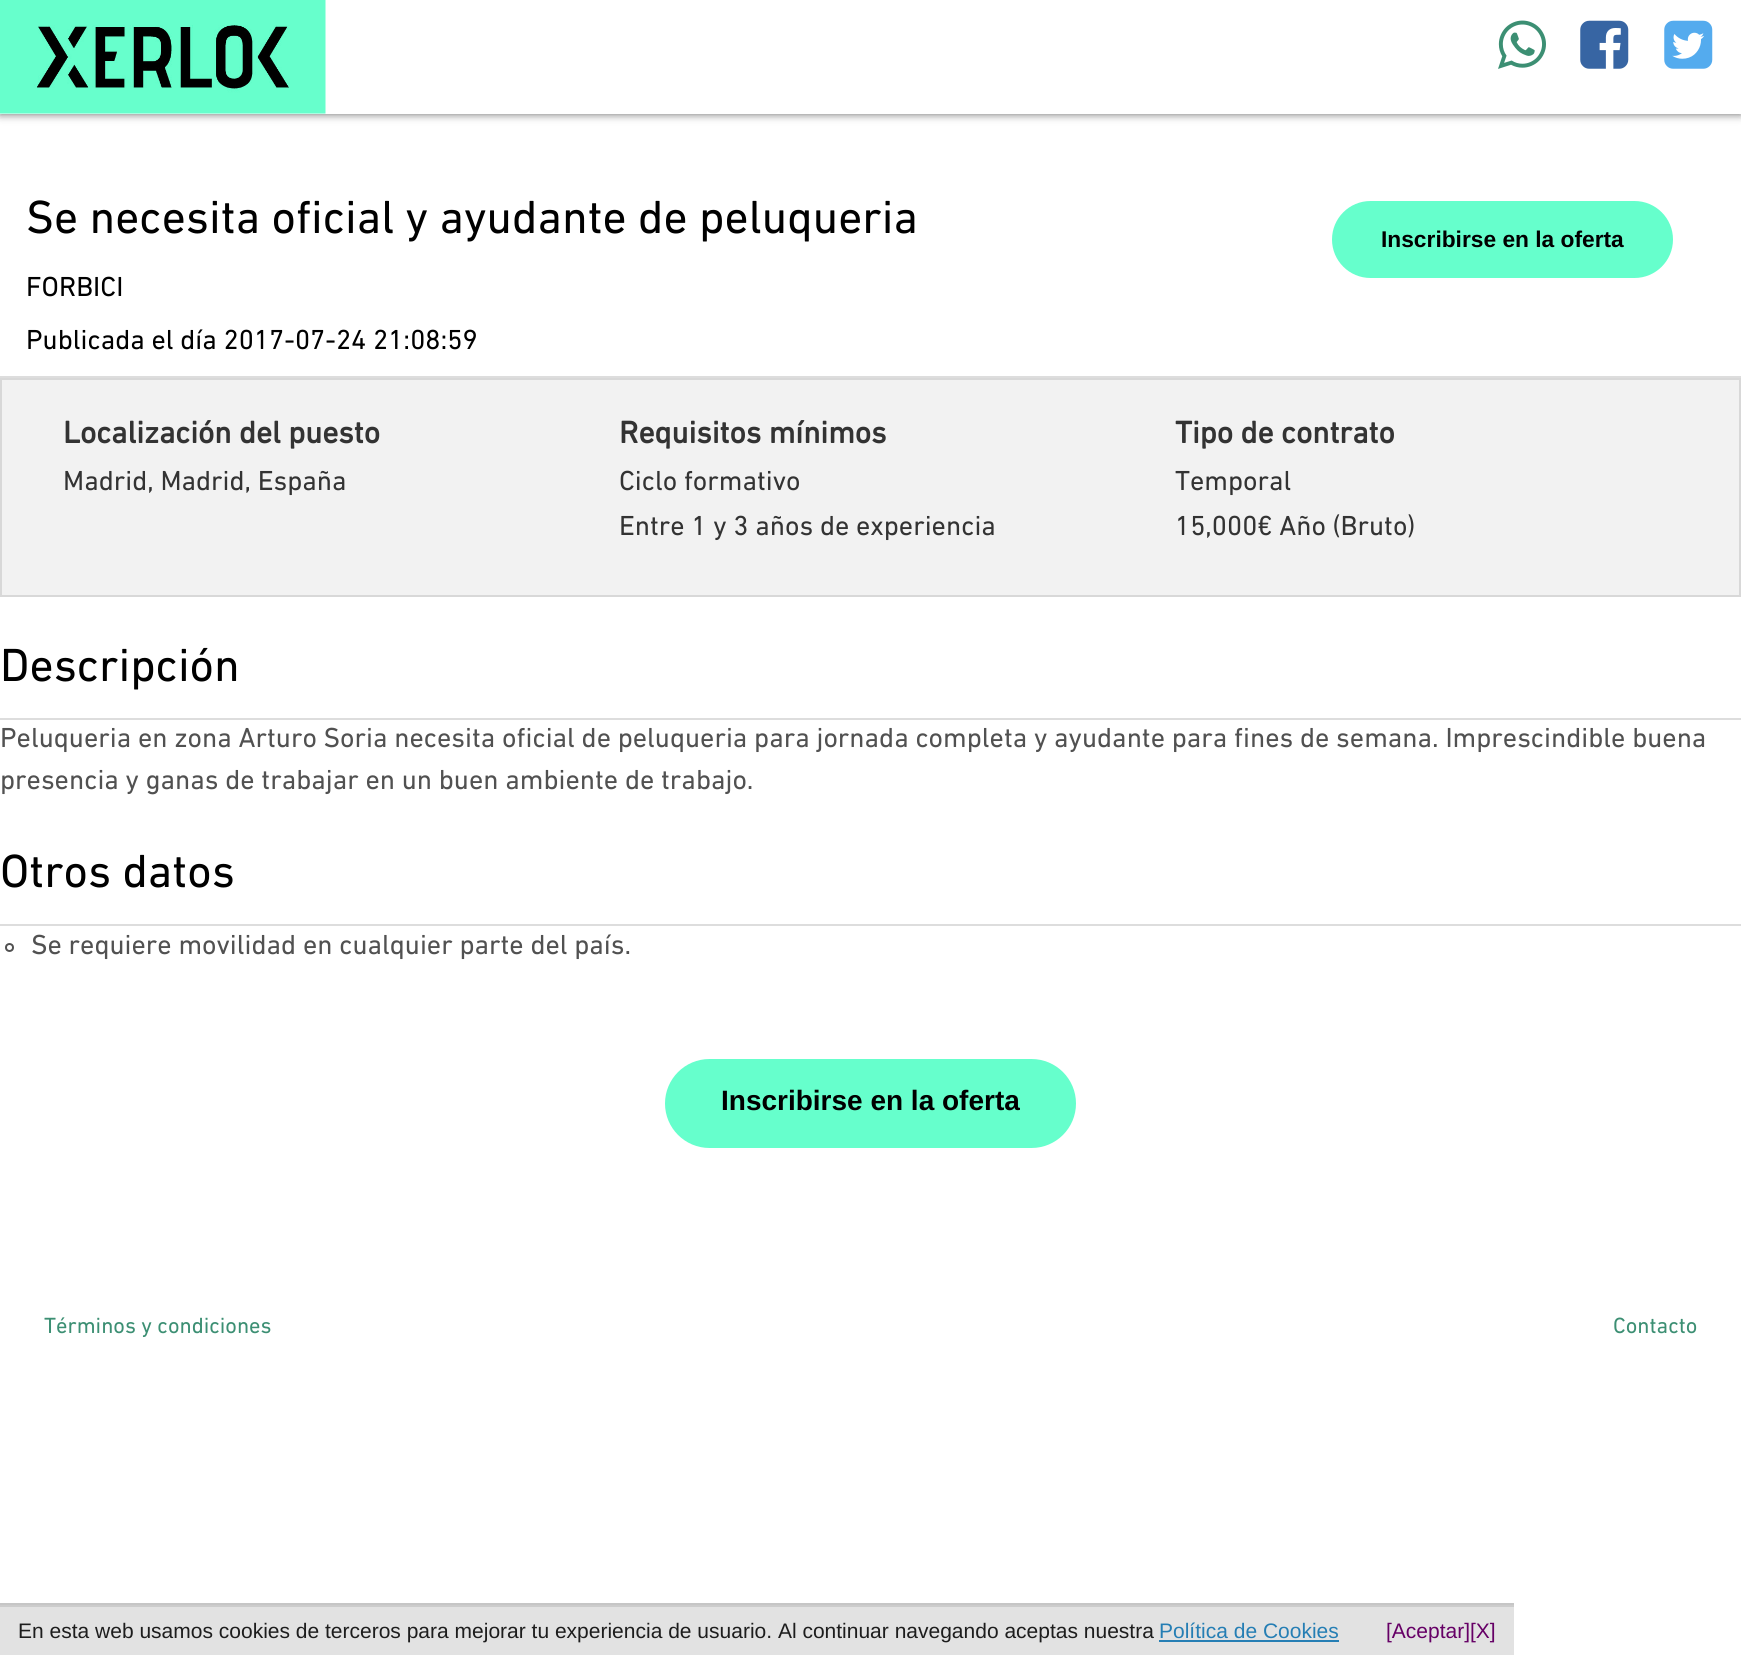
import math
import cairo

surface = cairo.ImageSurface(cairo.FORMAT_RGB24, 1741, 1655)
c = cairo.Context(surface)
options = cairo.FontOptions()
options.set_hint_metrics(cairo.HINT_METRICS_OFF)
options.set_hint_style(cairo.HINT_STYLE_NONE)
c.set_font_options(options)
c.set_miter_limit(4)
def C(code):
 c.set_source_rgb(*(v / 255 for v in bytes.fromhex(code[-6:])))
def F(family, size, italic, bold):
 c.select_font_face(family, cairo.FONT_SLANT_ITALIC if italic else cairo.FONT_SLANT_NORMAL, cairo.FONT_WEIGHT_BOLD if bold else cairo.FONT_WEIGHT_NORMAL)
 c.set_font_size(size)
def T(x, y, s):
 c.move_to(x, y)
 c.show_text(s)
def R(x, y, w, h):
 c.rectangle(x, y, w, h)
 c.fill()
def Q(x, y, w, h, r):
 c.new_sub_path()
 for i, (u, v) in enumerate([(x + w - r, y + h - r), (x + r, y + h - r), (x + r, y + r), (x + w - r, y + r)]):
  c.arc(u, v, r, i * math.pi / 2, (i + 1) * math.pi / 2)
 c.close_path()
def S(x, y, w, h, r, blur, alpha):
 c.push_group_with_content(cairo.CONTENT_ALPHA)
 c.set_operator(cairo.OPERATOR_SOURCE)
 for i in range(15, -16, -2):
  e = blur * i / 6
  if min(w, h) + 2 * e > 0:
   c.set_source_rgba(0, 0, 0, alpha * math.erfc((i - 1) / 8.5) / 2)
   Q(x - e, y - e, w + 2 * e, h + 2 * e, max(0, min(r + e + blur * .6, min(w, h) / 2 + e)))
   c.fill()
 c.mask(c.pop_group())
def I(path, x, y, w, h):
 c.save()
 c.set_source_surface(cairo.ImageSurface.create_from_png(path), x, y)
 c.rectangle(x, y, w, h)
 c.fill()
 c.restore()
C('ffffff')
c.paint()
C('666666')
S(0,0,1741,114,0,4.5,1)
C('ffffff')
R(0,0,1741,114)
I('1.png',0,0,326,114)
I('2.png',1498,20,48,49)
I('3.png',1580,20,49,49)
I('4.png',1664,20,49,49)
F('DIN Next',47.25,0,0)
C('000000')
T(26,233,'Se necesita oficial y ayudante de peluqueria')
F('DIN Next',28,0,0)
T(26,296,'FORBICI')
T(26,349,'Publicada el día 2017-07-24 21:08:59')
C('66ffcc')
Q(1332,201,341,77,38.5)
c.fill()
F('Liberation Sans',22.75,0,1)
C('000000')
T(1381,247,'Inscribirse en la oferta')
C('dddddd')
R(0,376,1741,2)
C('f2f2f2')
c.rectangle(1,379,1739,217)
c.fill_preserve()
C('d8d8d8')
c.stroke()
F('DIN Next',31.5,0,1)
C('333333')
T(63,443,'Localización del puesto')
F('DIN Next',28,0,0)
T(63,490,'Madrid, Madrid, España')
F('DIN Next',31.5,0,1)
T(619,443,'Requisitos mínimos')
F('DIN Next',28,0,0)
T(619,490,'Ciclo formativo')
T(619,535,'Entre 1 y 3 años de experiencia')
F('DIN Next',31.5,0,1)
T(1175,443,'Tipo de contrato')
F('DIN Next',28,0,0)
T(1175,490,'Temporal')
T(1175,535,'15,000€ Año (Bruto)')
F('DIN Next',47.25,0,0)
C('000000')
T(0,681,'Descripción')
C('dddddd')
R(0,718,1741,2)
F('DIN Next',28,0,0)
C('515151')
T(0,747,'Peluqueria en zona Arturo Soria necesita oficial de peluqueria para jornada completa y ayudante para fines de semana. Imprescindible buena')
T(0,789,'presencia y ganas de trabajar en un buen ambiente de trabajo.')
F('DIN Next',47.25,0,0)
C('000000')
T(0,887,'Otros datos')
C('dddddd')
R(0,924,1741,2)
c.new_path()
c.arc(9.5,947.5,3.5,0,2 * math.pi)
C('515151')
c.stroke()
F('DIN Next',28,0,0)
T(31,954,'Se requiere movilidad en cualquier parte del país.')
C('66ffcc')
Q(665,1059,411,89,44.5)
c.fill()
F('Liberation Sans',28,0,1)
C('000000')
T(721,1110,'Inscribirse en la oferta')
F('DIN Next',22.4,0,0)
C('3c8f73')
T(44,1333,'Términos y condiciones')
T(1613,1333,'Contacto')
C('e2e2e2')
R(0,1607,1514,48)
C('c6c6c6')
R(0,1603,1514,2)
C('cccccc')
R(0,1605,1514,2)
F('Liberation Sans',21,0,0)
C('1d1d1d')
T(18,1638,'En esta web usamos cookies de terceros para mejorar tu experiencia de usuario. Al continuar navegando aceptas nuestra')
C('257eb4')
T(1159,1638,'Política de Cookies')
R(1159,1640,180,2)
C('660066')
T(1386,1638,'[Aceptar]')
T(1470,1638,'[X]')
surface.write_to_png('o.png')
